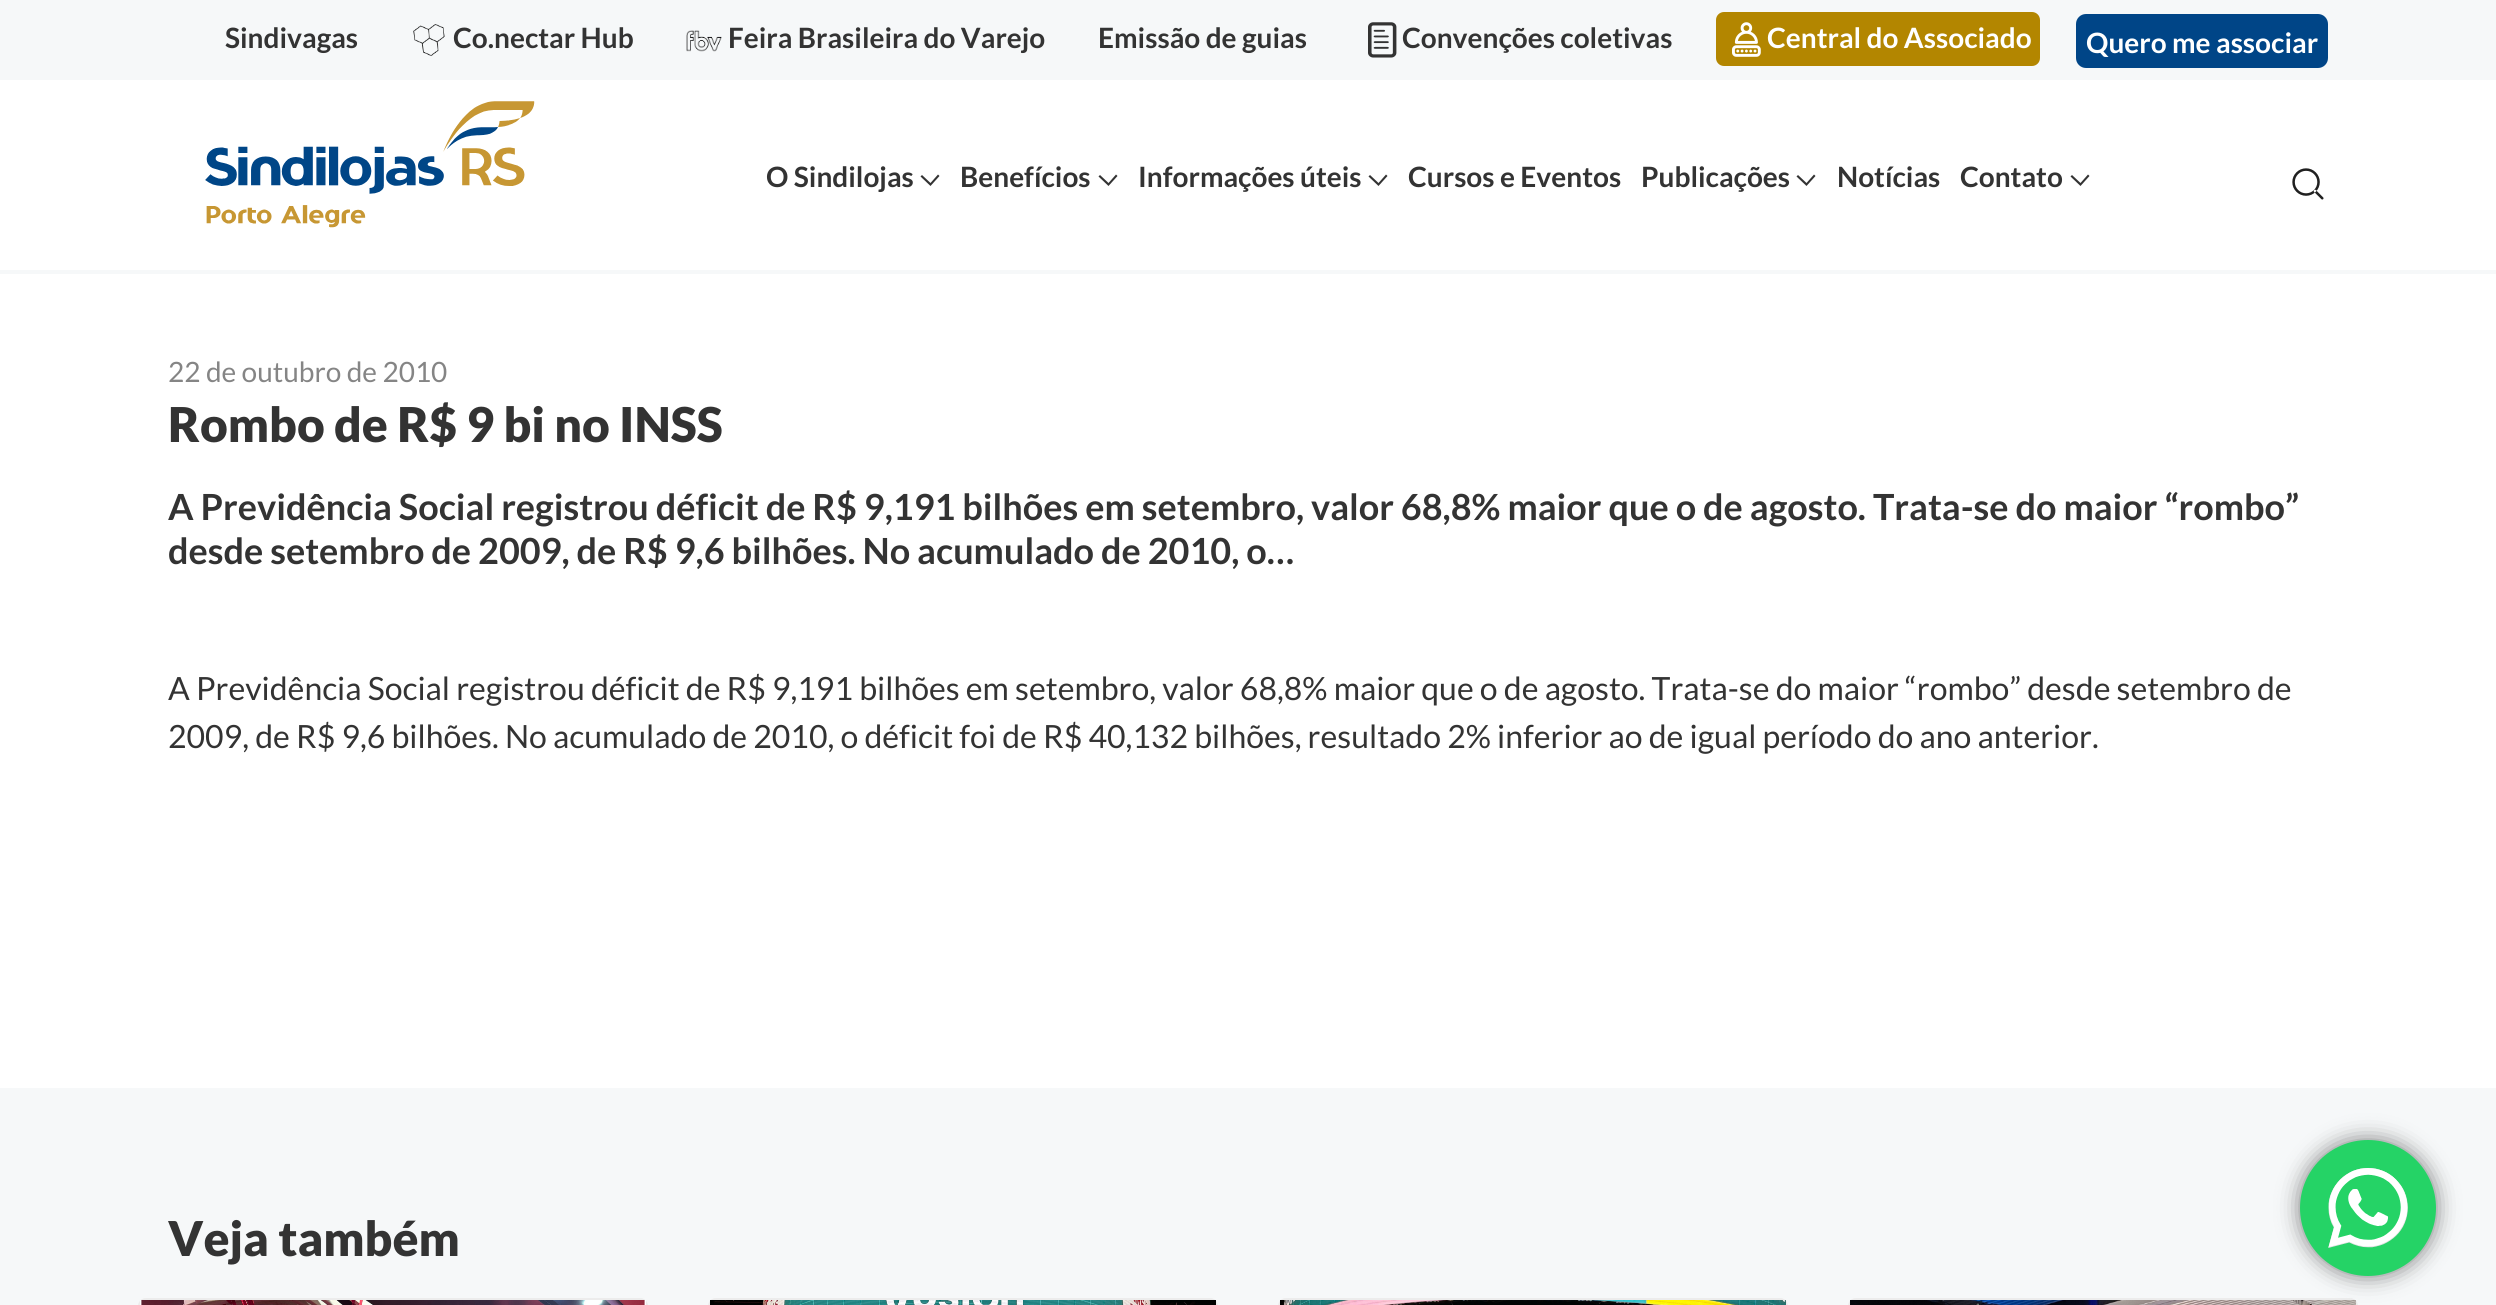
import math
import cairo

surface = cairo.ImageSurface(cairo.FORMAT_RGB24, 2496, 1305)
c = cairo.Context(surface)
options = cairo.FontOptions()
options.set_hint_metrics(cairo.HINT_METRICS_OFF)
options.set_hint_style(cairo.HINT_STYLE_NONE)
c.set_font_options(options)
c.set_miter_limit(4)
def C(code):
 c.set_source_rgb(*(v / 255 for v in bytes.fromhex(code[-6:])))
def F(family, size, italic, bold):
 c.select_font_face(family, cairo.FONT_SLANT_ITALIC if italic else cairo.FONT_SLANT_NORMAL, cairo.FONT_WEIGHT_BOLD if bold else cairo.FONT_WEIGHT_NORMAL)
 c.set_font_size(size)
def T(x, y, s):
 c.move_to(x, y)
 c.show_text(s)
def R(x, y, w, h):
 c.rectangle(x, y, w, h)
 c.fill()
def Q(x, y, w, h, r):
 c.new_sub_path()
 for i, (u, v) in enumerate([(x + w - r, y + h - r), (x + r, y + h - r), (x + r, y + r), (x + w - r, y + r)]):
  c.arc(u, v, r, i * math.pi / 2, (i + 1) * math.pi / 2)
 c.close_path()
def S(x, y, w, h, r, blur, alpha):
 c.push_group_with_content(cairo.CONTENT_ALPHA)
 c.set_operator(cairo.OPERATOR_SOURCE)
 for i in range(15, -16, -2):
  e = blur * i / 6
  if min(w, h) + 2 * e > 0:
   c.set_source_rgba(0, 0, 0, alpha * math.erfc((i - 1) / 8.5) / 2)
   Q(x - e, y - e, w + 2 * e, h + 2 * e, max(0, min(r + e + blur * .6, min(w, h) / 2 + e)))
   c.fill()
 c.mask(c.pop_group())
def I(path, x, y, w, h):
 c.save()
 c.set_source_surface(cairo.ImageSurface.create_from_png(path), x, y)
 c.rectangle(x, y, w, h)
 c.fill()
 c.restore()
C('ffffff')
c.paint()
C('f6f8f9')
R(0,270,2496,4)
R(0,0,2496,80)
F('Lato',28,0,1)
C('333333')
T(225,48,'Sindivagas')
I('1.png',413,24,32,32)
T(453,48,'Co.nectar Hub')
I('2.png',686,30,36,22)
T(728,48,'Feira Brasileira do Varejo')
T(1098,48,'Emissão de guias')
I('3.png',1368,22,29,36)
T(1402,48,'Convenções coletivas')
C('b38600')
Q(1716,12,324,54,8)
c.fill()
I('4.png',1732,22,29,35)
C('ffffff')
T(1767,48,'Central do Associado')
C('004587')
Q(2077,15,250,52,9)
c.fill_preserve()
c.stroke()
C('ffffff')
T(2086,53,'Quero me associar')
I('5.png',205,101,330,127)
C('333333')
T(766,187,'O Sindilojas')
c.new_path()
c.move_to(920.5,176.5)
c.line_to(930.5,186)
c.line_to(939.5,176)
c.line_to(938,174.5)
c.line_to(930.5,183)
c.line_to(922,175)
c.close_path()
c.fill()
T(960,187,'Benefícios')
c.new_path()
c.move_to(1098.5,176.5)
c.line_to(1108.5,186)
c.line_to(1117.5,176)
c.line_to(1116,174.5)
c.line_to(1108.5,183)
c.line_to(1100,175)
c.close_path()
c.fill()
T(1138,187,'Informações úteis')
c.new_path()
c.move_to(1368.5,176.5)
c.line_to(1378.5,186)
c.line_to(1387.5,176)
c.line_to(1386,174.5)
c.line_to(1378.5,183)
c.line_to(1370,175)
c.close_path()
c.fill()
T(1408,187,'Cursos e Eventos')
T(1641,187,'Publicações')
c.new_path()
c.move_to(1796.5,176.5)
c.line_to(1806.5,186)
c.line_to(1815.5,176)
c.line_to(1814,174.5)
c.line_to(1806.5,183)
c.line_to(1798,175)
c.close_path()
c.fill()
T(1837,187,'Notícias')
T(1960,187,'Contato')
c.new_path()
c.move_to(2070.5,176.5)
c.line_to(2080.5,186)
c.line_to(2089.5,176)
c.line_to(2088,174.5)
c.line_to(2080.5,183)
c.line_to(2072,175)
c.close_path()
c.fill()
I('6.png',2292,168,32,32)
F('Lato',28,0,0)
C('858585')
T(168,382,'22 de outubro de 2010')
F('Lato Black',48,0,0)
C('333333')
T(168,442,'Rombo de R$ 9 bi no INSS')
F('Lato',36,0,1)
T(168,520,'A Previdência Social registrou déficit de R$ 9,191 bilhões em setembro, valor 68,8% maior que o de agosto. Trata-se do maior “rombo”')
T(168,564,'desde setembro de 2009, de R$ 9,6 bilhões. No acumulado de 2010, o…')
F('Lato',32,0,0)
T(168,700,'A Previdência Social registrou déficit de R$ 9,191 bilhões em setembro, valor 68,8% maior que o de agosto. Trata-se do maior “rombo” desde setembro de')
T(168,748,'2009, de R$ 9,6 bilhões. No acumulado de 2010, o déficit foi de R$ 40,132 bilhões, resultado 2% inferior ao de igual período do ano anterior.')
C('f6f8f9')
R(0,1088,2496,217)
F('Lato Black',48,0,0)
C('333333')
T(168,1256,'Veja também')
Q(139,1299,508,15,7)
C('ececec')
c.stroke()
I('7.png',140,1300,506,5)
Q(709,1299,508,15,7)
c.stroke()
I('8.png',710,1300,506,5)
Q(1279,1299,508,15,7)
c.stroke()
I('9.png',1280,1300,506,5)
Q(1849,1299,508,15,7)
c.stroke()
I('10.png',1850,1300,506,5)
C('000000')
S(2300,1140,136,136,68,11,.5)
C('25d366')
c.arc(2368,1208,68,0,2 * math.pi)
c.fill()
I('11.png',2328,1168,80,80)
surface.write_to_png('o.png')
